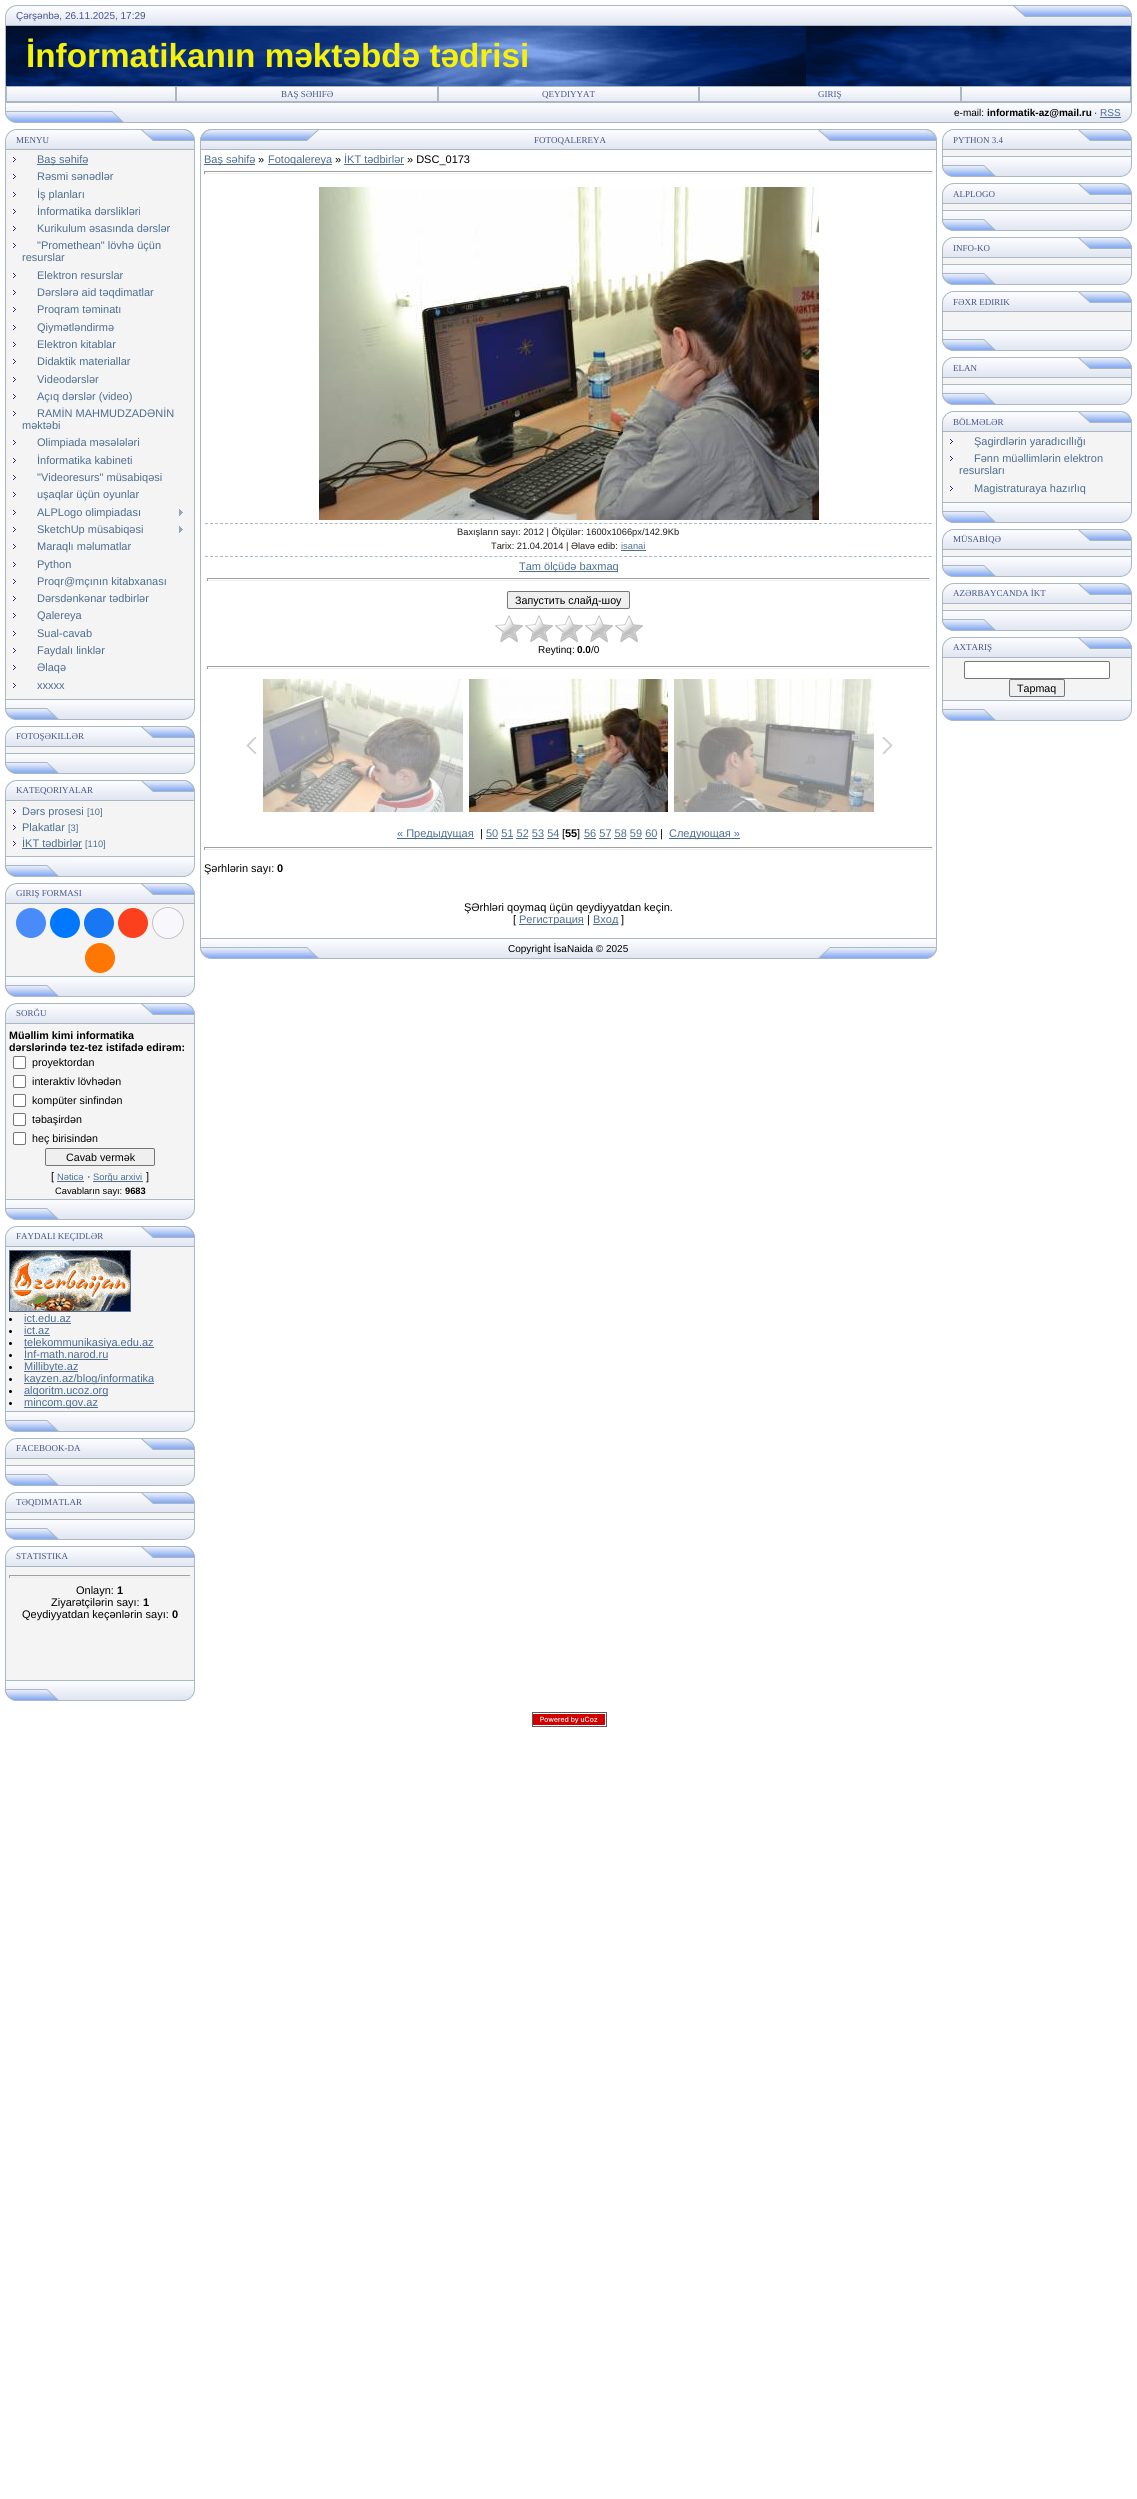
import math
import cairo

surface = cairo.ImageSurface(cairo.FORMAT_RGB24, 1137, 2499)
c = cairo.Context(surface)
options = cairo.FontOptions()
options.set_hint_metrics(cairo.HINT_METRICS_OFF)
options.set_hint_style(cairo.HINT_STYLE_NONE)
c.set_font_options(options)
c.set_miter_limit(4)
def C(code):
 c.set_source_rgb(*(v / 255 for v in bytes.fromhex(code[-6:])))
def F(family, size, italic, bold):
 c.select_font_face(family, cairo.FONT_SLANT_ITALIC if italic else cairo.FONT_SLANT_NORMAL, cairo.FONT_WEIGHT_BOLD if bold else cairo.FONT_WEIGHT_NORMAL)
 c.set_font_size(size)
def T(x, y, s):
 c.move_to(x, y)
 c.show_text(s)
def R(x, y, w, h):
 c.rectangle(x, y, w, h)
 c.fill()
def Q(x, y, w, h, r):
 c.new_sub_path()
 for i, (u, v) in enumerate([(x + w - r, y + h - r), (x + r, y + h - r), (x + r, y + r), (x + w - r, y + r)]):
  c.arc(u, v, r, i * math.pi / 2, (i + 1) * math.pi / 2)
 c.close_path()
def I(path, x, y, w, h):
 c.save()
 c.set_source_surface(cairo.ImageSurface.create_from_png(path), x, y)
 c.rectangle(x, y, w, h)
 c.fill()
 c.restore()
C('ffffff')
c.paint()
I('1.png',5,5,11,21)
I('2.png',16,5,997,21)
F('Liberation Sans',10,0,0)
C('445588')
T(16,19,'Çərşənbə, 26.11.2025, 17:29')
I('3.png',1013,5,119,21)
C('a9b8c2')
R(1131,26,1,76)
R(5,26,1,76)
I('4.png',6,26,1125,60)
F('Liberation Sans',33.3,0,1)
C('f4f10c')
T(26,67,'İnformatikanın məktəbdə tədrisi')
I('5.png',7,87,168,14)
c.rectangle(6.5,86.5,169,15)
C('a9b8c2')
c.set_line_width(1)
c.stroke()
I('6.png',177,87,260,14)
c.rectangle(176.5,86.5,261,15)
c.stroke()
F('Liberation Serif',9,0,0)
C('445588')
T(281,97,'BAŞ SƏHIFƏ')
I('7.png',439,87,259,14)
c.rectangle(438.5,86.5,260,15)
C('a9b8c2')
c.stroke()
C('445588')
T(542,97,'QEYDIYYAT')
I('6.png',700,87,260,14)
c.rectangle(699.5,86.5,261,15)
C('a9b8c2')
c.stroke()
C('445588')
T(818,97,'GIRIŞ')
I('5.png',962,87,168,14)
c.rectangle(961.5,86.5,169,15)
C('a9b8c2')
c.stroke()
I('8.png',5,102,119,21)
I('2.png',124,102,997,21)
F('Liberation Sans',10,0,0)
C('000000')
T(954,116,'e-mail:')
F('Liberation Sans',10,0,1)
T(987,116,'informatik-az@mail.ru')
F('Liberation Sans',10,0,0)
T(1094,116,'·')
C('4d6d91')
T(1100,116,'RSS')
R(1100,117,21,1)
I('9.png',1121,102,11,21)
I('1.png',5,129,11,21)
I('10.png',16,129,125,21)
F('Liberation Serif',9,0,0)
C('445588')
T(16,143,'MENYU')
I('11.png',141,129,54,21)
C('f4f4f4')
R(6,150,188,549)
C('a9b8c2')
R(194,150,1,549)
R(5,150,1,549)
I('12.png',12,157,4,5)
C('4d6d91')
R(37,164,51,1)
F('Liberation Sans',11,0,0)
T(37,163,'Baş səhifə')
I('12.png',12,174,4,5)
T(37,180,'Rəsmi sənədlər')
I('12.png',12,192,4,5)
T(37,198,'İş planları')
I('12.png',12,209,4,5)
T(37,215,'İnformatika dərslikləri')
I('12.png',12,226,4,5)
T(37,232,'Kurikulum əsasında dərslər')
I('12.png',12,243,4,5)
T(37,249,'"Promethean" lövhə üçün')
T(22,261,'resurslar')
I('12.png',12,273,4,5)
T(37,279,'Elektron resurslar')
I('12.png',12,290,4,5)
T(37,296,'Dərslərə aid təqdimatlar')
I('12.png',12,307,4,5)
T(37,313,'Proqram təminatı')
I('12.png',12,325,4,5)
T(37,331,'Qiymətləndirmə')
I('12.png',12,342,4,5)
T(37,348,'Elektron kitablar')
I('12.png',12,359,4,5)
T(37,365,'Didaktik materiallar')
I('12.png',12,377,4,5)
T(37,383,'Videodərslər')
I('12.png',12,394,4,5)
T(37,400,'Açıq dərslər (video)')
I('12.png',12,411,4,5)
T(37,417,'RAMİN MAHMUDZADƏNİN')
T(22,429,'məktəbi')
I('12.png',12,440,4,5)
T(37,446,'Olimpiada məsələləri')
I('12.png',12,458,4,5)
T(37,464,'İnformatika kabineti')
I('12.png',12,475,4,5)
T(37,481,'"Videoresurs" müsabiqəsi')
I('12.png',12,492,4,5)
T(37,498,'uşaqlar üçün oyunlar')
I('12.png',12,510,4,5)
T(37,516,'ALPLogo olimpiadası')
I('13.png',179,509,4,7)
I('12.png',12,527,4,5)
T(37,533,'SketchUp müsabiqəsi')
I('13.png',179,526,4,7)
I('12.png',12,544,4,5)
T(37,550,'Maraqlı məlumatlar')
I('12.png',12,562,4,5)
T(37,568,'Python')
I('12.png',12,579,4,5)
T(37,585,'Proqr@mçının kitabxanası')
I('12.png',12,596,4,5)
T(37,602,'Dərsdənkənar tədbirlər')
I('12.png',12,613,4,5)
T(37,619,'Qalereya')
I('12.png',12,631,4,5)
T(37,637,'Sual-cavab')
I('12.png',12,648,4,5)
T(37,654,'Faydalı linklər')
I('12.png',12,665,4,5)
T(37,671,'Əlaqə')
I('12.png',12,683,4,5)
T(37,689,'xxxxx')
I('14.png',5,699,190,21)
I('1.png',5,726,11,21)
I('10.png',16,726,125,21)
F('Liberation Serif',9,0,0)
C('445588')
T(16,739,'FOTOŞƏKILLƏR')
I('11.png',141,726,54,21)
C('f4f4f4')
R(5,747,190,6)
C('a9b8c2')
R(194,747,1,6)
R(5,747,1,6)
I('14.png',5,753,190,21)
I('1.png',5,780,11,21)
I('10.png',16,780,125,21)
C('445588')
T(16,793,'KATEQORIYALAR')
I('11.png',141,780,54,21)
C('f4f4f4')
R(6,801,188,55)
C('a9b8c2')
R(194,801,1,55)
R(5,801,1,55)
I('12.png',12,809,4,5)
F('Liberation Sans',11,0,0)
C('4d6d91')
T(22,815,'Dərs prosesi')
F('Liberation Sans',9.3,0,0)
T(87,815,'[10]')
I('12.png',12,825,4,5)
F('Liberation Sans',11,0,0)
T(22,831,'Plakatlar')
F('Liberation Sans',9.3,0,0)
T(68,831,'[3]')
I('12.png',12,841,4,5)
F('Liberation Sans',11,0,0)
T(22,847,'İKT tədbirlər')
R(22,848,60,1)
F('Liberation Sans',9.3,0,0)
T(85,847,'[110]')
I('14.png',5,856,190,21)
I('1.png',5,883,11,21)
I('10.png',16,883,125,21)
F('Liberation Serif',9,0,0)
C('445588')
T(16,896,'GIRIŞ FORMASI')
I('11.png',141,883,54,21)
C('f4f4f4')
R(6,904,188,72)
C('a9b8c2')
R(194,904,1,72)
R(5,904,1,72)
C('498bfa')
c.arc(31,923,15,0,2 * math.pi)
c.fill()
C('0077ff')
c.arc(65,923,15,0,2 * math.pi)
c.fill()
C('1877f2')
c.arc(99,923,15,0,2 * math.pi)
c.fill()
C('fc3f1d')
c.arc(133,923,15,0,2 * math.pi)
c.fill()
C('f8f8fc')
c.arc(168,923,15.5,0,2 * math.pi)
c.fill_preserve()
C('c4c4c4')
c.stroke()
C('ff7700')
c.arc(100,958,15,0,2 * math.pi)
c.fill()
I('14.png',5,976,190,21)
I('1.png',5,1003,11,21)
I('10.png',16,1003,125,21)
C('445588')
T(16,1016,'SORĞU')
I('11.png',141,1003,54,21)
C('f4f4f4')
R(6,1024,188,175)
C('a9b8c2')
R(194,1024,1,175)
R(5,1024,1,175)
F('Liberation Sans',10.7,0,1)
C('000000')
T(9,1039,'Müəllim kimi informatika')
T(9,1051,'dərslərində tez-tez istifadə edirəm:')
C('ffffff')
Q(13.5,1056.5,12,12,1.5)
c.fill_preserve()
C('767676')
c.stroke()
F('Liberation Sans',10.7,0,0)
C('000000')
T(32,1066,'proyektordan')
C('ffffff')
Q(13.5,1075.5,12,12,1.5)
c.fill_preserve()
C('767676')
c.stroke()
C('000000')
T(32,1085,'interaktiv lövhədən')
C('ffffff')
Q(13.5,1094.5,12,12,1.5)
c.fill_preserve()
C('767676')
c.stroke()
C('000000')
T(32,1104,'kompüter sinfindən')
C('ffffff')
Q(13.5,1113.5,12,12,1.5)
c.fill_preserve()
C('767676')
c.stroke()
C('000000')
T(32,1123,'təbaşirdən')
C('ffffff')
Q(13.5,1132.5,12,12,1.5)
c.fill_preserve()
C('767676')
c.stroke()
C('000000')
T(32,1142,'heç birisindən')
C('efefef')
Q(45.5,1148.5,109,17,1.5)
c.fill_preserve()
C('767676')
c.stroke()
C('000000')
T(66,1161,'Cavab vermək')
F('Liberation Sans',11,0,0)
T(51,1180,'[')
F('Liberation Sans',9.3,0,0)
C('4d6d91')
T(57,1180,'Nəticə')
R(57,1181,27,1)
F('Liberation Sans',11,0,0)
C('000000')
T(87,1180,'·')
C('4d6d91')
R(93,1181,50,1)
F('Liberation Sans',9.3,0,0)
T(93,1180,'Sorğu arxivi')
F('Liberation Sans',11,0,0)
C('000000')
T(146,1180,']')
F('Liberation Sans',9.3,0,0)
T(55,1194,'Cavabların sayı:')
F('Liberation Sans',9.3,0,1)
T(125,1194,'9683')
I('14.png',5,1199,190,21)
I('1.png',5,1226,11,21)
I('10.png',16,1226,125,21)
F('Liberation Serif',9,0,0)
C('445588')
T(16,1239,'FAYDALI KEÇIDLƏR')
I('11.png',141,1226,54,21)
C('f4f4f4')
R(6,1247,188,164)
C('a9b8c2')
R(194,1247,1,164)
R(5,1247,1,164)
c.rectangle(9.5,1250.5,121,61)
C('4d6d91')
c.stroke()
I('15.png',10,1251,120,60)
C('000000')
c.arc(10.5,1319.5,1.5,0,2 * math.pi)
c.fill()
F('Liberation Sans',11,0,0)
C('4d6d91')
T(24,1322,'ict.edu.az')
R(24,1323,47,1)
C('000000')
c.new_path()
c.arc(10.5,1331.5,1.5,0,2 * math.pi)
c.fill()
C('4d6d91')
T(24,1334,'ict.az')
R(24,1335,26,1)
C('000000')
c.new_path()
c.arc(10.5,1343.5,1.5,0,2 * math.pi)
c.fill()
C('4d6d91')
R(24,1347,130,1)
T(24,1346,'telekommunikasiya.edu.az')
C('000000')
c.new_path()
c.arc(10.5,1355.5,1.5,0,2 * math.pi)
c.fill()
C('4d6d91')
T(24,1358,'İnf-math.narod.ru')
R(24,1359,84,1)
C('000000')
c.new_path()
c.arc(10.5,1367.5,1.5,0,2 * math.pi)
c.fill()
C('4d6d91')
R(24,1371,54,1)
T(24,1370,'Millibyte.az')
C('000000')
c.new_path()
c.arc(10.5,1379.5,1.5,0,2 * math.pi)
c.fill()
C('4d6d91')
R(24,1383,130,1)
T(24,1382,'kayzen.az/blog/informatika')
C('000000')
c.new_path()
c.arc(10.5,1391.5,1.5,0,2 * math.pi)
c.fill()
C('4d6d91')
R(24,1395,84,1)
T(24,1394,'alqoritm.ucoz.org')
C('000000')
c.new_path()
c.arc(10.5,1403.5,1.5,0,2 * math.pi)
c.fill()
C('4d6d91')
R(24,1407,74,1)
T(24,1406,'mincom.gov.az')
I('14.png',5,1411,190,21)
I('1.png',5,1438,11,21)
I('10.png',16,1438,125,21)
F('Liberation Serif',9,0,0)
C('445588')
T(16,1451,'FACEBOOK-DA')
I('11.png',141,1438,54,21)
C('f4f4f4')
R(5,1459,190,6)
C('a9b8c2')
R(194,1459,1,6)
R(5,1459,1,6)
I('14.png',5,1465,190,21)
I('1.png',5,1492,11,21)
I('10.png',16,1492,125,21)
C('445588')
T(16,1505,'TƏQDIMATLAR')
I('11.png',141,1492,54,21)
C('f4f4f4')
R(5,1513,190,6)
C('a9b8c2')
R(194,1513,1,6)
R(5,1513,1,6)
I('14.png',5,1519,190,21)
I('1.png',5,1546,11,21)
I('10.png',16,1546,125,21)
C('445588')
T(16,1559,'STATISTIKA')
I('11.png',141,1546,54,21)
C('f4f4f4')
R(6,1567,188,113)
C('a9b8c2')
R(194,1567,1,113)
R(5,1567,1,113)
C('9f9f9f')
R(9,1575,182,1)
C('eeeeee')
R(190,1575,1,3)
R(9,1577,182,1)
C('9f9f9f')
R(9,1575,1,3)
F('Liberation Sans',11,0,0)
C('000000')
T(76,1594,'Onlayn:')
F('Liberation Sans',11,0,1)
T(117,1594,'1')
F('Liberation Sans',11,0,0)
T(51,1606,'Ziyarətçilərin sayı:')
F('Liberation Sans',11,0,1)
T(143,1606,'1')
F('Liberation Sans',11,0,0)
T(22,1618,'Qeydiyyatdan keçənlərin sayı:')
F('Liberation Sans',11,0,1)
T(172,1618,'0')
I('14.png',5,1680,190,21)
I('16.png',200,129,119,21)
I('17.png',319,129,499,21)
F('Liberation Serif',9,0,0)
C('445588')
T(534,143,'FOTOQALEREYA')
I('3.png',818,129,119,21)
C('a9b8c2')
R(936,150,1,788)
R(200,150,1,788)
C('4d6d91')
R(204,164,51,1)
F('Liberation Sans',11,0,0)
T(204,163,'Baş səhifə')
C('000000')
T(258,163,'»')
C('4d6d91')
R(268,164,64,1)
T(268,163,'Fotoqalereya')
C('000000')
T(335,163,'»')
C('4d6d91')
T(344,163,'İKT tədbirlər')
R(344,164,60,1)
C('000000')
T(407,163,'» DSC_0173')
C('9f9f9f')
R(204,171,729,1)
C('eeeeee')
R(932,171,1,3)
R(204,173,729,1)
C('9f9f9f')
R(204,171,1,3)
I('18.png',319,187,500,333)
c.new_path()
c.move_to(205,523.5)
c.line_to(932,523.5)
C('a9b8c2')
c.set_dash([3,1.99])
c.stroke()
c.new_path()
c.move_to(205,556.5)
c.line_to(932,556.5)
c.stroke()
F('Liberation Sans',9.3,0,0)
C('1a1a1a')
T(457,535,'Baxışların sayı: 2012 | Ölçülər: 1600x1066px/142.9Kb')
T(491,549,'Tarix: 21.04.2014 | Əlavə edib:')
C('4d6d91')
T(621,549,'isanai')
R(621,550,25,1)
R(519,571,99,1)
F('Liberation Sans',11,0,0)
T(519,570,'Tam ölçüdə baxmaq')
C('9f9f9f')
R(207,578,723,1)
C('eeeeee')
R(929,578,1,3)
R(207,580,723,1)
C('9f9f9f')
R(207,578,1,3)
C('efefef')
Q(507.5,591.5,122,17,1.5)
c.fill_preserve()
C('767676')
c.set_dash([])
c.stroke()
F('Liberation Sans',10.7,0,0)
C('000000')
T(515,604,'Запустить слайд-шоу')
I('19.png',495,615,148,28)
F('Liberation Sans',10,0,0)
T(538,653,'Reytinq:')
F('Liberation Sans',10,0,1)
T(577,653,'0.0')
F('Liberation Sans',10,0,0)
T(591,653,'/0')
C('9f9f9f')
R(207,666,723,1)
C('eeeeee')
R(929,666,1,3)
R(207,668,723,1)
C('9f9f9f')
R(207,666,1,3)
I('20.png',246,737,11,17)
I('21.png',263,679,200,133)
I('22.png',469,679,199,133)
I('23.png',674,679,200,133)
I('24.png',882,737,11,17)
C('4d6d91')
R(397,838,77,1)
F('Liberation Sans',11,0,0)
T(397,837,'« Предыдущая')
C('000000')
T(480,837,'|')
C('4d6d91')
T(486,837,'50 51 52 53 54')
R(486,838,12,1)
C('000000')
T(562,837,'[')
F('Liberation Sans',11,0,1)
T(565,837,'55')
F('Liberation Sans',11,0,0)
T(577,837,']')
C('4d6d91')
T(584,837,'56 57 58 59 60')
R(584,838,12,1)
C('000000')
T(660,837,'|')
C('4d6d91')
R(669,838,71,1)
T(669,837,'Следующая »')
R(501,838,12,1)
R(516,838,12,1)
R(532,838,12,1)
R(547,838,12,1)
R(599,838,12,1)
R(614,838,12,1)
R(630,838,12,1)
R(645,838,12,1)
C('9f9f9f')
R(204,847,729,1)
C('eeeeee')
R(932,847,1,3)
R(204,849,729,1)
C('9f9f9f')
R(204,847,1,3)
C('000000')
T(204,872,'Şərhlərin sayı:')
F('Liberation Sans',11,0,1)
T(277,872,'0')
F('Liberation Sans',11,0,0)
T(464,911,'ŞƏrhləri qoymaq üçün qeydiyyatdan keçin.')
T(513,923,'[')
C('4d6d91')
R(519,924,65,1)
T(519,923,'Регистрация')
C('000000')
T(587,923,'|')
C('4d6d91')
R(593,924,25,1)
T(593,923,'Вход')
C('000000')
T(621,923,']')
I('8.png',200,938,119,21)
I('17.png',319,938,499,21)
F('Liberation Sans',10,0,0)
T(508,952,'Copyright İsaNaida © 2025')
I('25.png',818,938,119,21)
I('1.png',942,129,11,21)
I('10.png',953,129,125,21)
F('Liberation Serif',9,0,0)
C('445588')
T(953,143,'PYTHON 3.4')
I('11.png',1078,129,54,21)
C('f4f4f4')
R(942,150,190,6)
C('a9b8c2')
R(1131,150,1,6)
R(942,150,1,6)
I('14.png',942,156,190,21)
I('1.png',942,183,11,21)
I('10.png',953,183,125,21)
C('445588')
T(953,197,'ALPLOGO')
I('11.png',1078,183,54,21)
C('f4f4f4')
R(942,204,190,6)
C('a9b8c2')
R(1131,204,1,6)
R(942,204,1,6)
I('14.png',942,210,190,21)
I('1.png',942,237,11,21)
I('10.png',953,237,125,21)
C('445588')
T(953,251,'INFO-KO')
I('11.png',1078,237,54,21)
C('f4f4f4')
R(942,258,190,6)
C('a9b8c2')
R(1131,258,1,6)
R(942,258,1,6)
I('14.png',942,264,190,21)
I('1.png',942,291,11,21)
I('10.png',953,291,125,21)
C('445588')
T(953,305,'FƏXR EDIRIK')
I('11.png',1078,291,54,21)
C('f4f4f4')
R(943,312,188,18)
C('a9b8c2')
R(1131,312,1,18)
R(942,312,1,18)
I('14.png',942,330,190,21)
I('1.png',942,357,11,21)
I('10.png',953,357,125,21)
C('445588')
T(953,371,'ELAN')
I('11.png',1078,357,54,21)
C('f4f4f4')
R(942,378,190,6)
C('a9b8c2')
R(1131,378,1,6)
R(942,378,1,6)
I('14.png',942,384,190,21)
I('1.png',942,411,11,21)
I('10.png',953,411,125,21)
C('445588')
T(953,425,'BÖLMƏLƏR')
I('11.png',1078,411,54,21)
C('f4f4f4')
R(943,432,188,70)
C('a9b8c2')
R(1131,432,1,70)
R(942,432,1,70)
I('12.png',949,439,4,5)
F('Liberation Sans',11,0,0)
C('4d6d91')
T(974,445,'Şagirdlərin yaradıcıllığı')
I('12.png',949,456,4,5)
T(974,462,'Fənn müəllimlərin elektron')
T(959,474,'resursları')
I('12.png',949,486,4,5)
T(974,492,'Magistraturaya hazırlıq')
I('14.png',942,502,190,21)
I('1.png',942,529,11,21)
I('10.png',953,529,125,21)
F('Liberation Serif',9,0,0)
C('445588')
T(953,542,'MÜSABİQƏ')
I('11.png',1078,529,54,21)
C('f4f4f4')
R(942,550,190,6)
C('a9b8c2')
R(1131,550,1,6)
R(942,550,1,6)
I('14.png',942,556,190,21)
I('1.png',942,583,11,21)
I('10.png',953,583,125,21)
C('445588')
T(953,596,'AZƏRBAYCANDA İKT')
I('11.png',1078,583,54,21)
C('f4f4f4')
R(942,604,190,6)
C('a9b8c2')
R(1131,604,1,6)
R(942,604,1,6)
I('14.png',942,610,190,21)
I('1.png',942,637,11,21)
I('10.png',953,637,125,21)
C('445588')
T(953,650,'AXTARIŞ')
I('11.png',1078,637,54,21)
C('f4f4f4')
R(943,658,188,42)
C('a9b8c2')
R(1131,658,1,42)
R(942,658,1,42)
C('ffffff')
Q(964.5,661.5,145,17,1.5)
c.fill_preserve()
C('767676')
c.stroke()
C('efefef')
Q(1009.5,679.5,55,17,1.5)
c.fill_preserve()
C('767676')
c.stroke()
F('Liberation Sans',10.7,0,0)
C('000000')
T(1017,692,'Tapmaq')
I('14.png',942,700,190,21)
I('26.png',532,1712,75,15)
surface.write_to_png('o.png')
